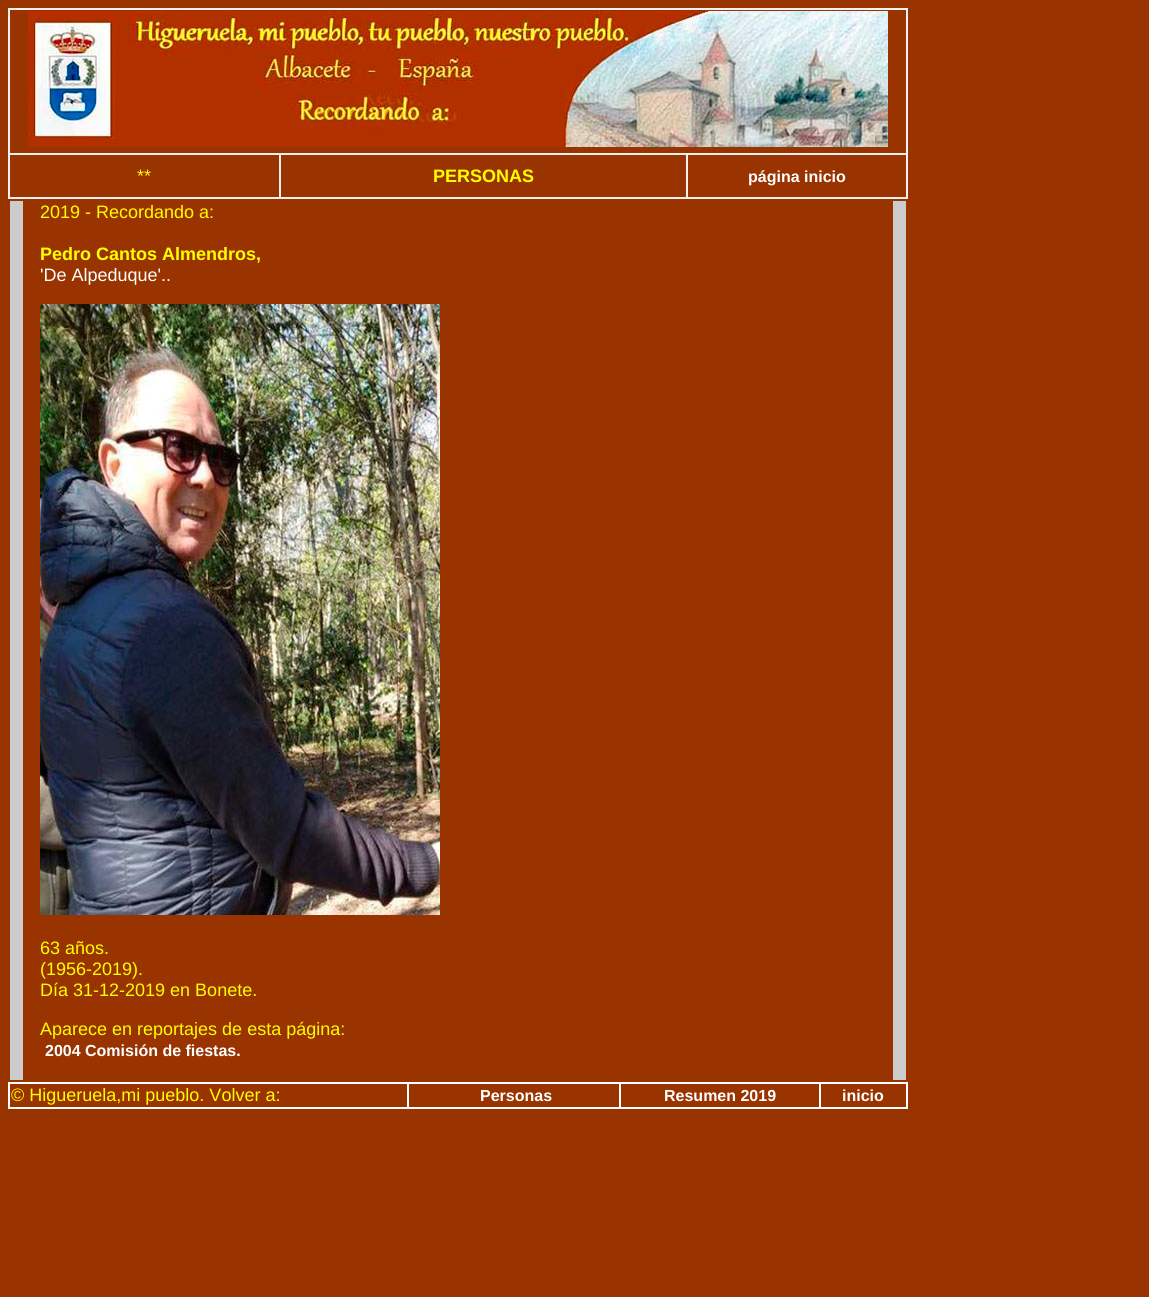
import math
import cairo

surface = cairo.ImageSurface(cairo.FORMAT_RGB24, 1149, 1297)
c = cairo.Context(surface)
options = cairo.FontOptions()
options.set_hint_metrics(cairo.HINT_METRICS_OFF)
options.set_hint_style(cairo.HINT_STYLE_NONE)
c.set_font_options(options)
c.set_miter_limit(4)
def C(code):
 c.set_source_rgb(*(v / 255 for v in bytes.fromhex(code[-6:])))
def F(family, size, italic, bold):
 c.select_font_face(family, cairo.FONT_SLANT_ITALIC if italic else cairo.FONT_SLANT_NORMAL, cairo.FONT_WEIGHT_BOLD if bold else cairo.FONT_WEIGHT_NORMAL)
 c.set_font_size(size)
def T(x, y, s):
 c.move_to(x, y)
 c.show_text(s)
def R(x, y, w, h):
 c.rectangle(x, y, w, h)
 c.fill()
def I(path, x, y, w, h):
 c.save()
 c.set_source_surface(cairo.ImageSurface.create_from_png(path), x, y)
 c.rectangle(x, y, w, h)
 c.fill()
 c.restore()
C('993300')
c.paint()
C('f0f0f0')
R(8,8,900,191)
C('993300')
R(10,10,896,143)
I('1.png',28,11,860,136)
R(10,155,269,42)
F('Liberation Sans',18,0,0)
C('ffff00')
T(137,182,'**')
C('993300')
R(281,155,405,42)
F('Liberation Sans',18,0,1)
C('ffff00')
T(433,182,'PERSONAS')
C('993300')
R(688,155,218,42)
F('Liberation Sans',16,0,1)
C('ffffff')
T(748,182,'página inicio')
C('cccccc')
R(10,201,13,879)
F('Liberation Sans',18,0,0)
C('ffff00')
T(40,218,'2019 - Recordando a:')
F('Liberation Sans',18,0,1)
T(40,260,'Pedro Cantos Almendros,')
F('Liberation Sans',18,0,0)
C('ffffff')
T(40,281,'\'De Alpeduque\'..')
I('2.png',40,304,400,611)
C('ffff00')
T(40,954,'63 años.')
T(40,975,'(1956-2019).')
T(40,996,'Día 31-12-2019 en Bonete.')
T(40,1035,'Aparece en reportajes de esta página:')
F('Liberation Sans',16,0,1)
C('ffffff')
T(45,1056,'2004 Comisión de fiestas.')
C('cccccc')
R(893,201,13,879)
c.rectangle(8.5,1082.5,899,26)
C('ffffff')
c.set_line_width(1)
c.stroke()
c.rectangle(9.5,1083.5,398,24)
c.stroke()
F('Liberation Sans',18,0,0)
C('ffff00')
T(11,1101,'© Higueruela,mi pueblo. Volver a:')
c.rectangle(408.5,1083.5,211,24)
C('ffffff')
c.stroke()
F('Liberation Sans',16,0,1)
T(480,1101,'Personas')
c.rectangle(620.5,1083.5,199,24)
c.stroke()
T(664,1101,'Resumen 2019')
c.rectangle(820.5,1083.5,86,24)
c.stroke()
T(842,1101,'inicio')
surface.write_to_png('o.png')
